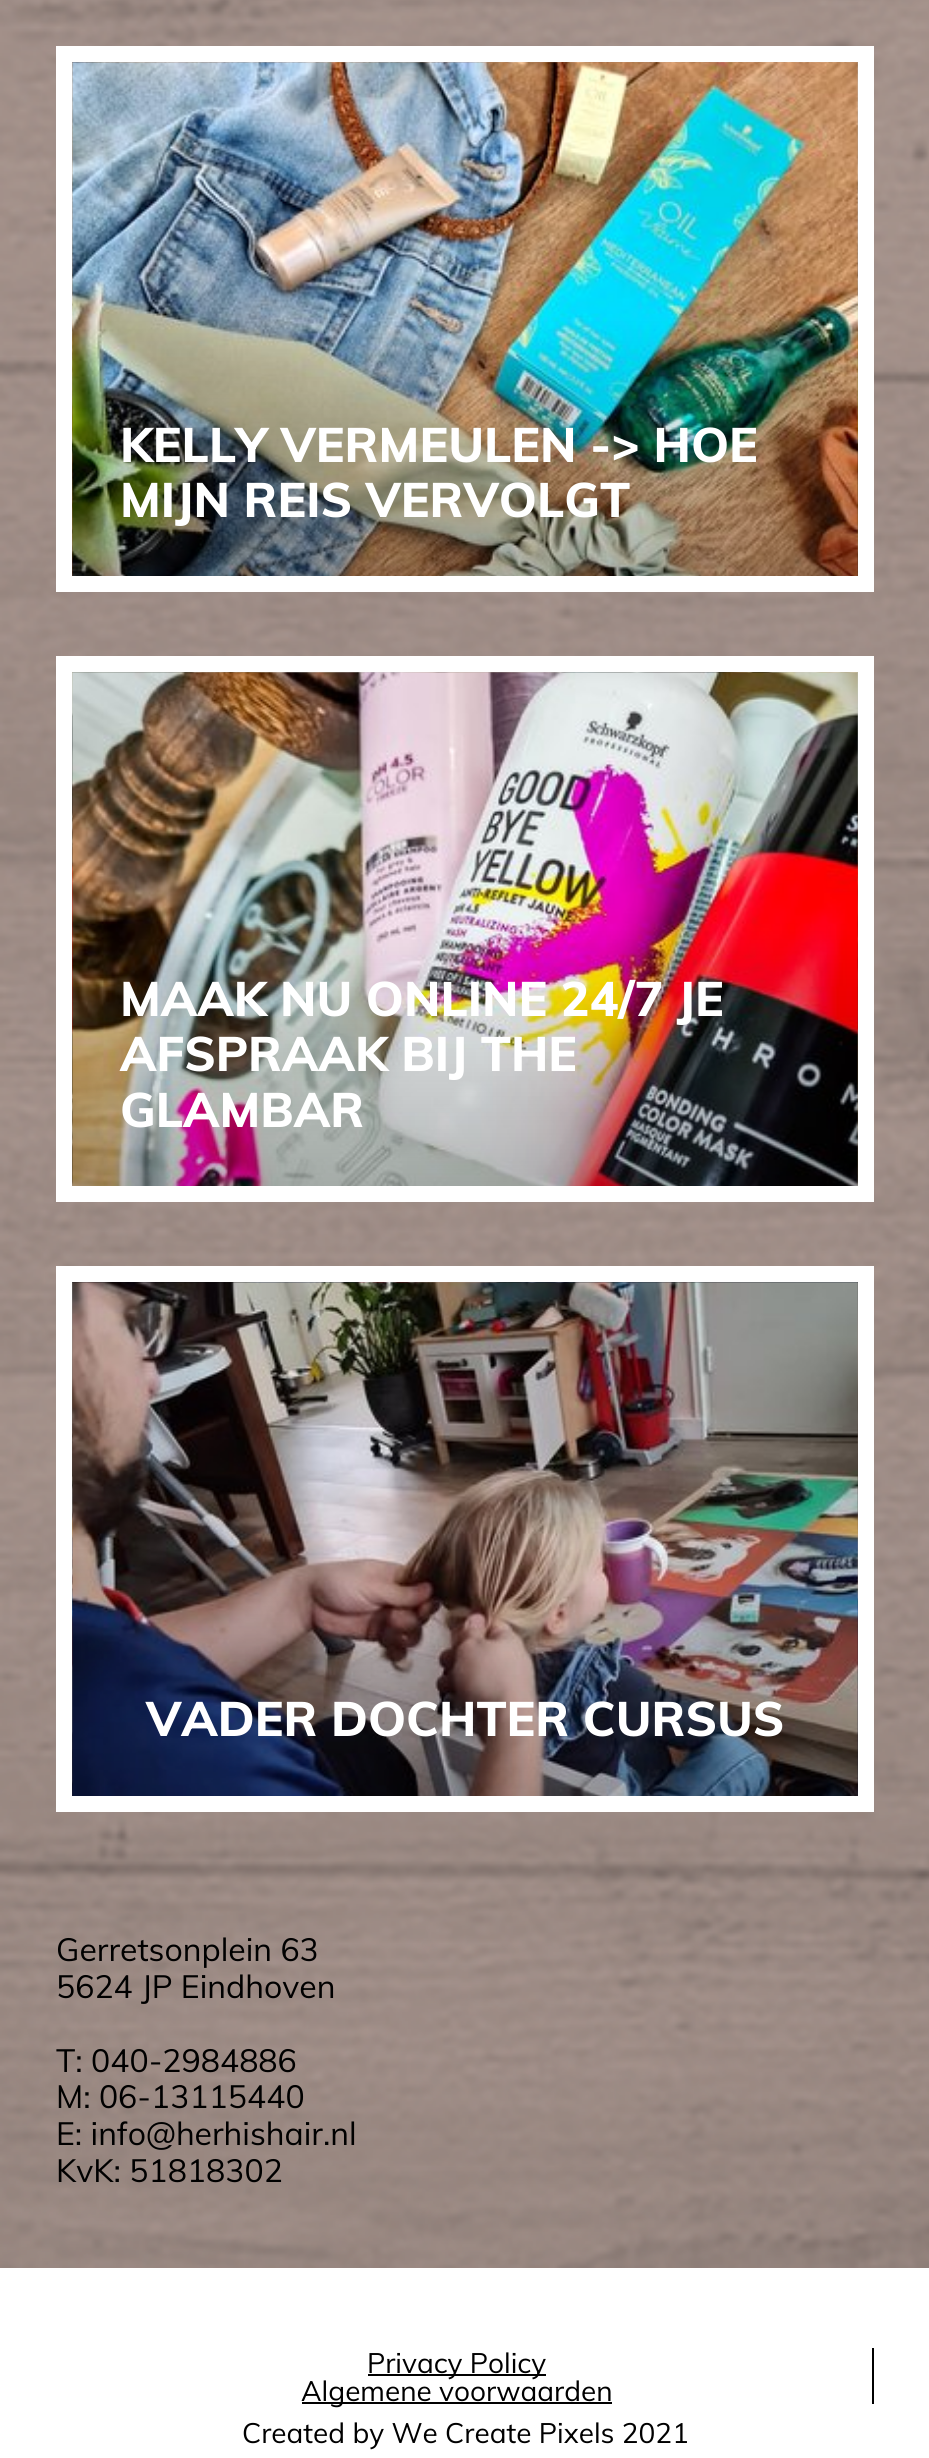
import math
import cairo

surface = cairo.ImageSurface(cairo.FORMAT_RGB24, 929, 2458)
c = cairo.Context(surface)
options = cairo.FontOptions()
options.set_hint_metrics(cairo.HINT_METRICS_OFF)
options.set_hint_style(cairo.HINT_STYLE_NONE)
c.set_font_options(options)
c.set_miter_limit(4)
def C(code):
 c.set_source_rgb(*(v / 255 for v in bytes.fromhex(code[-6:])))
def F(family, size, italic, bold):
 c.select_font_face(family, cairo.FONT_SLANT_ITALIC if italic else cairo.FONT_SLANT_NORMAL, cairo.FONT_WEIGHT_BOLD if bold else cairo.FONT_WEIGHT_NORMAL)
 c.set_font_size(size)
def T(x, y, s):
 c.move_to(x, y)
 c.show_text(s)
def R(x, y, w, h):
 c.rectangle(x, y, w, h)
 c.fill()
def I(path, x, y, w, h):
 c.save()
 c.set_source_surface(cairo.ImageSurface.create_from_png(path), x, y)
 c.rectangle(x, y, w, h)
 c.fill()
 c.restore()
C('ffffff')
c.paint()
I('1.png',0,0,929,2268)
I('2.png',72,62,786,514)
c.rectangle(64,54,802,530)
C('ffffff')
c.set_line_width(16)
c.stroke()
F('Muli ExtraBold',48,0,0)
T(120,462,'KELLY VERMEULEN -> HOE')
T(120,517,'MIJN REIS VERVOLGT')
I('3.png',72,672,786,514)
c.rectangle(64,664,802,530)
c.stroke()
T(120,1016,'MAAK NU ONLINE 24/7 JE')
T(120,1071,'AFSPRAAK BIJ THE')
T(120,1127,'GLAMBAR')
I('4.png',72,1282,786,514)
c.rectangle(64,1274,802,530)
c.stroke()
T(146,1736,'VADER DOCHTER CURSUS')
F('Muli',32,0,0)
C('000000')
T(56,1961,'Gerretsonplein 63')
T(56,1998,'5624 JP Eindhoven')
T(56,2072,'T: 040-2984886')
T(56,2108,'M: 06-13115440')
T(56,2145,'E: info@herhishair.nl')
T(56,2182,'KvK: 51818302')
R(872,2348,2,56)
R(368,2374,178,2)
F('Muli',28,0,0)
T(367,2373,'Privacy Policy')
R(302,2402,310,2)
T(301,2401,'Algemene voorwaarden')
T(242,2443,'Created by We Create Pixels 2021')
surface.write_to_png('o.png')
